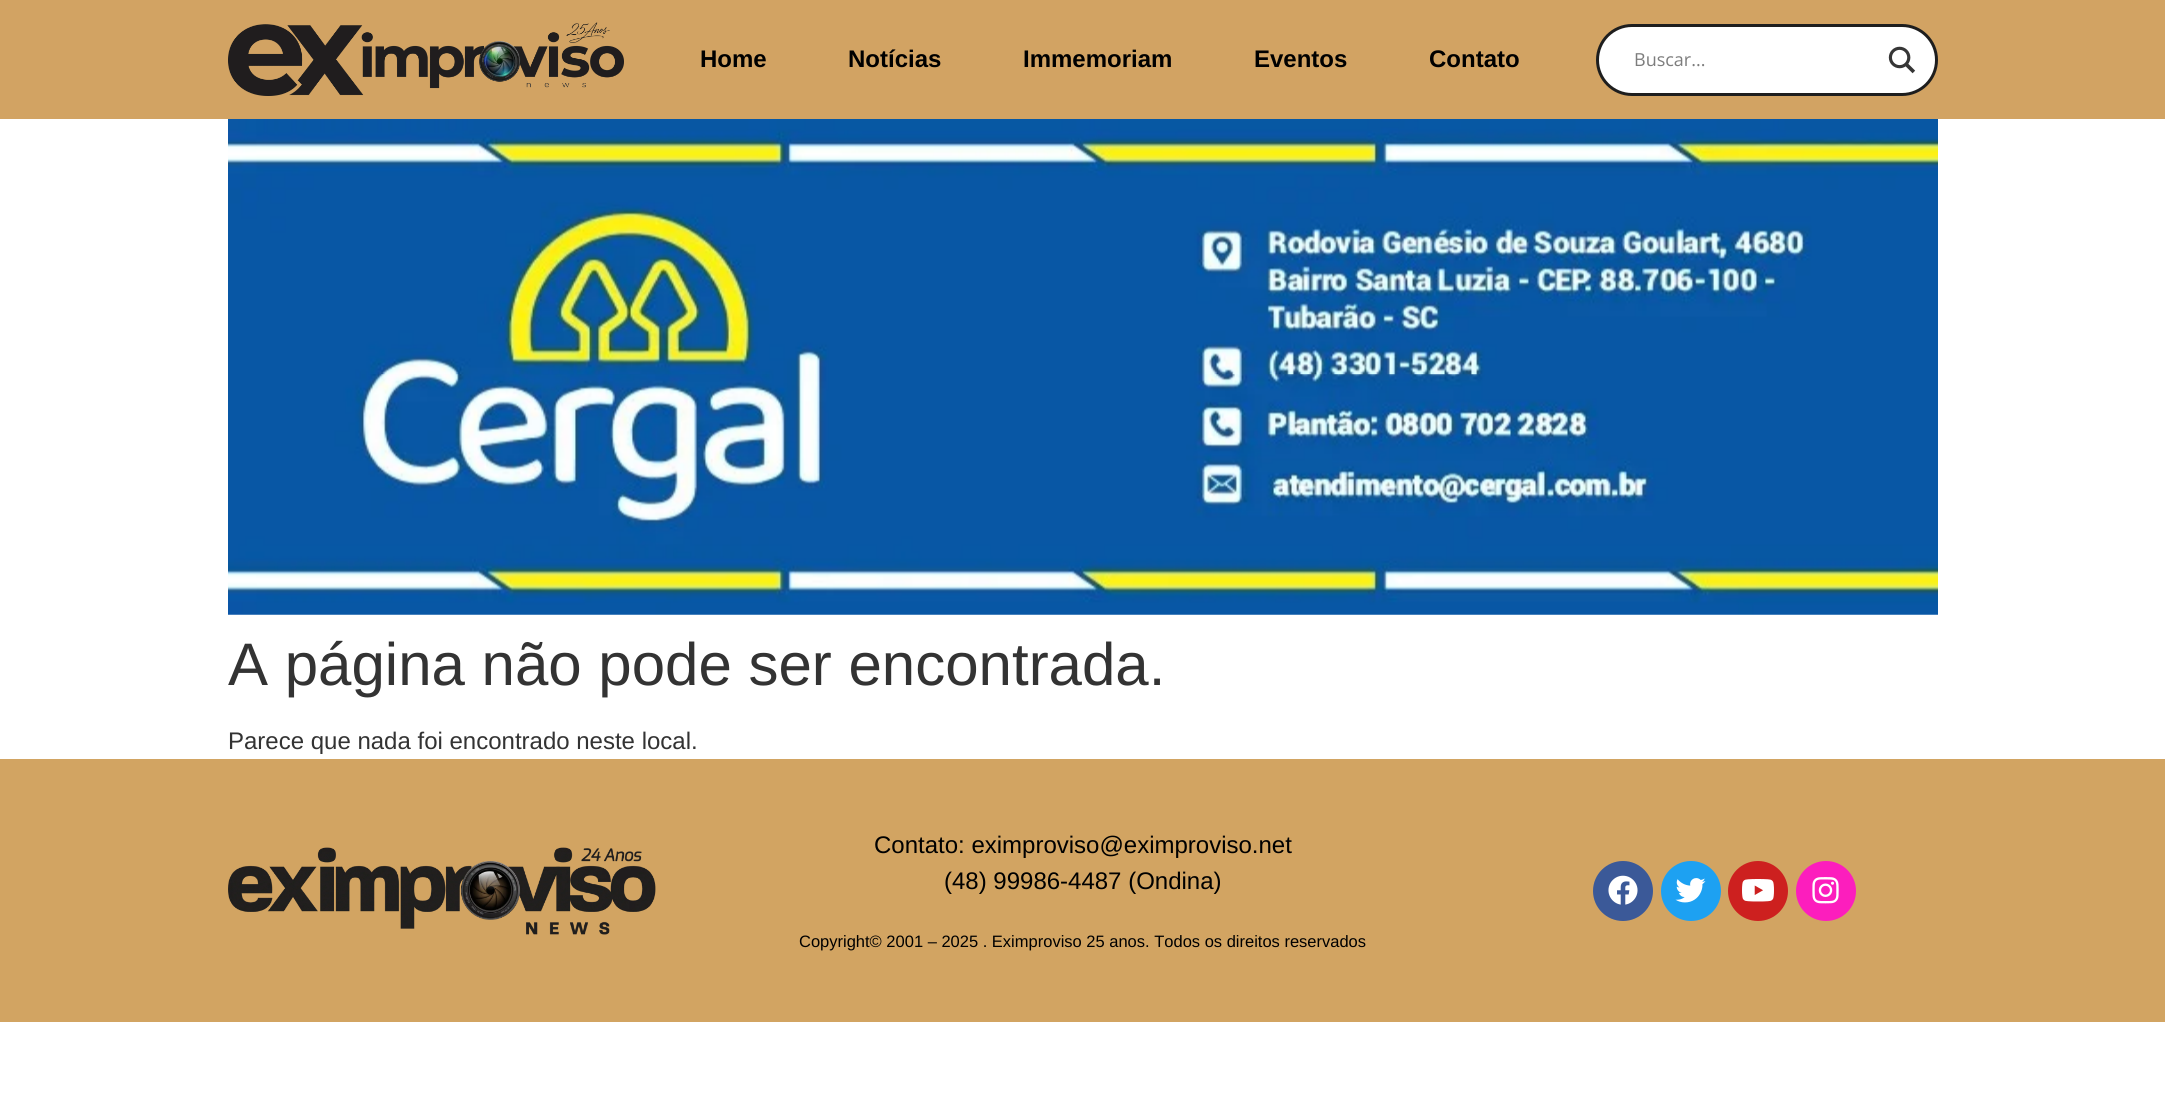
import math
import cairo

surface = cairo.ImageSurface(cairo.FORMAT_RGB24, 2165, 1114)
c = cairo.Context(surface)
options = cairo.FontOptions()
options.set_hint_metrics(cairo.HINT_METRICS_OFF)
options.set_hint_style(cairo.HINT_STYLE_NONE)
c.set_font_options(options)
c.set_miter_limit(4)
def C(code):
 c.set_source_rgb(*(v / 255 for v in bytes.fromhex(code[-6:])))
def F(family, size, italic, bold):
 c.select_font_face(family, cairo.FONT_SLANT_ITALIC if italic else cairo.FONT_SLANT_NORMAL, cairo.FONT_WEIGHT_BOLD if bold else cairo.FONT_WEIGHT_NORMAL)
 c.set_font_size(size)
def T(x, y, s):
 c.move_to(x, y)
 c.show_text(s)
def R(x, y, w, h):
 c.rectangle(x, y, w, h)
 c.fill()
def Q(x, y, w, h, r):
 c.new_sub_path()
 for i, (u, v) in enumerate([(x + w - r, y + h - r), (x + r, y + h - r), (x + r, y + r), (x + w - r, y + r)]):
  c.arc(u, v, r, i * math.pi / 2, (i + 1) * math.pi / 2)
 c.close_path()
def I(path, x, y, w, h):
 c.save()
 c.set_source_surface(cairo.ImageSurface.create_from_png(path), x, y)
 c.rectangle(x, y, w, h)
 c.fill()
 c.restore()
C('ffffff')
c.paint()
C('d2a363')
R(0,0,2165,119)
I('1.png',228,22,396,74)
F('Liberation Sans',24,0,1)
C('000000')
T(700,67,'Home')
T(848,67,'Notícias')
T(1023,67,'Immemoriam')
T(1254,67,'Eventos')
T(1429,67,'Contato')
C('ffffff')
Q(1597.5,25.5,339,69,34.5)
c.fill_preserve()
C('1e1e1e')
c.set_line_width(3)
c.stroke()
F('Open Sans',18,0,0)
C('7d7d7d')
T(1634,66,'Buscar...')
I('2.png',1888,46,28,28)
I('3.png',228,119,1710,496)
F('Liberation Sans',60,0,0)
C('333333')
T(228,685,'A página não pode ser encontrada.')
F('Liberation Sans',24,0,0)
T(228,749,'Parece que nada foi encontrado neste local.')
C('d2a462')
R(0,759,2165,263)
I('4.png',228,847,428,88)
C('000000')
T(874,853,'Contato: eximproviso@eximproviso.net')
T(944,889,'(48) 99986-4487 (Ondina)')
F('Liberation Sans',16.5,0,0)
T(799,947,'Copyright© 2001 – 2025 . Eximproviso 25 anos. Todos os direitos reservados')
C('3b5998')
c.new_path()
c.arc(1623,891,30,0,2 * math.pi)
c.fill()
I('5.png',1608,875,30,30)
C('1da1f2')
c.arc(1691,891,30,0,2 * math.pi)
c.fill()
I('6.png',1675,878,31,25)
C('cd201f')
c.arc(1758,891,30,0,2 * math.pi)
c.fill()
I('7.png',1742,879,32,23)
C('fc1ebd')
c.arc(1826,891,30,0,2 * math.pi)
c.fill()
I('8.png',1812,877,27,27)
surface.write_to_png('o.png')
